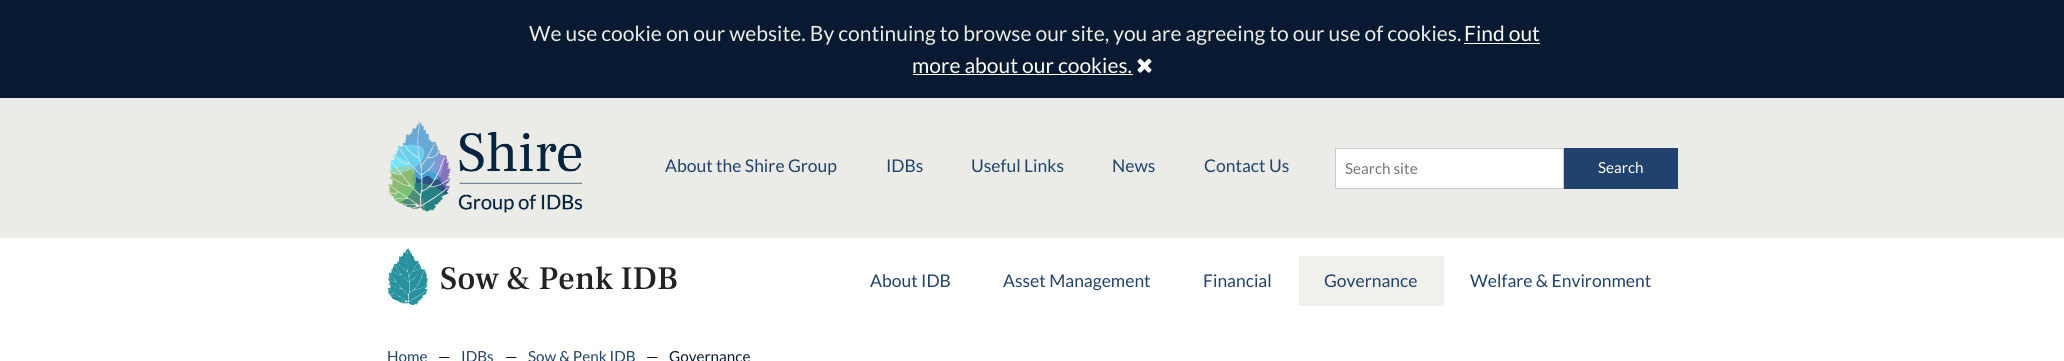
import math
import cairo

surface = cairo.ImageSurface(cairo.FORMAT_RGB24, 2064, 361)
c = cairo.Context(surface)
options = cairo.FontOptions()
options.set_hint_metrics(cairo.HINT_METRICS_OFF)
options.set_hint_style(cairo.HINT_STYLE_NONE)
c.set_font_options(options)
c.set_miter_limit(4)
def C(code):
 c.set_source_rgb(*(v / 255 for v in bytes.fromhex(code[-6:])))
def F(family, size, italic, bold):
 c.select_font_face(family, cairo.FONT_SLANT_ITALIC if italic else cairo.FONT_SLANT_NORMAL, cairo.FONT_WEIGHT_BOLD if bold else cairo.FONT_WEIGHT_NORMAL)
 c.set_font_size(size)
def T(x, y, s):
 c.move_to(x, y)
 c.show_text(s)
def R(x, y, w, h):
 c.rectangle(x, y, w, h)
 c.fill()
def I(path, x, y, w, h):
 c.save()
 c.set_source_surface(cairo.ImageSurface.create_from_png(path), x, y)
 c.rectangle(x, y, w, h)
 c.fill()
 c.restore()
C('081a31')
c.paint()
F('Lato',21,0,0)
C('ebece7')
T(529,41,'We use cookie on our website. By continuing to browse our site, you are agreeing to our use of cookies.')
C('ffffff')
T(1464,41,'Find out')
R(1464,43,76,1)
T(912,73,'more about our cookies.')
R(913,74,220,1)
I('1.png',1137,58,15,15)
R(0,238,2064,123)
C('ebece7')
R(0,98,2064,140)
I('2.png',388,122,195,91)
F('Lato',17.5,0,0)
C('21426d')
T(665,172,'About the Shire Group')
T(886,172,'IDBs')
T(971,172,'Useful Links')
T(1112,172,'News')
T(1204,172,'Contact Us')
C('ffffff')
c.rectangle(1335.5,148.5,228,40)
c.fill_preserve()
C('cccccc')
c.set_line_width(1)
c.stroke()
F('Lato',15.25,0,0)
C('757575')
T(1345,174,'Search site')
C('21426d')
R(1564,148,114,41)
C('ffffff')
T(1598,173,'Search')
I('3.png',387,248,41,57)
F('Frank Ruhl Libre Medium',32.75,0,0)
C('222222')
T(440,289,'Sow & Penk IDB')
F('Lato',17.5,0,0)
C('21426d')
T(870,287,'About IDB')
T(1003,287,'Asset Management')
T(1203,287,'Financial')
C('f0f1ed')
R(1299,256,145,50)
C('21426d')
T(1324,287,'Governance')
T(1470,287,'Welfare & Environment')
F('Lato',15.25,0,0)
T(387,362,'Home')
C('081a31')
T(438,362,'—')
C('21426d')
T(461,362,'IDBs')
C('081a31')
T(505,362,'—')
C('21426d')
T(528,362,'Sow & Penk IDB')
C('081a31')
T(646,362,'—')
T(669,362,'Governance')
surface.write_to_png('o.png')
